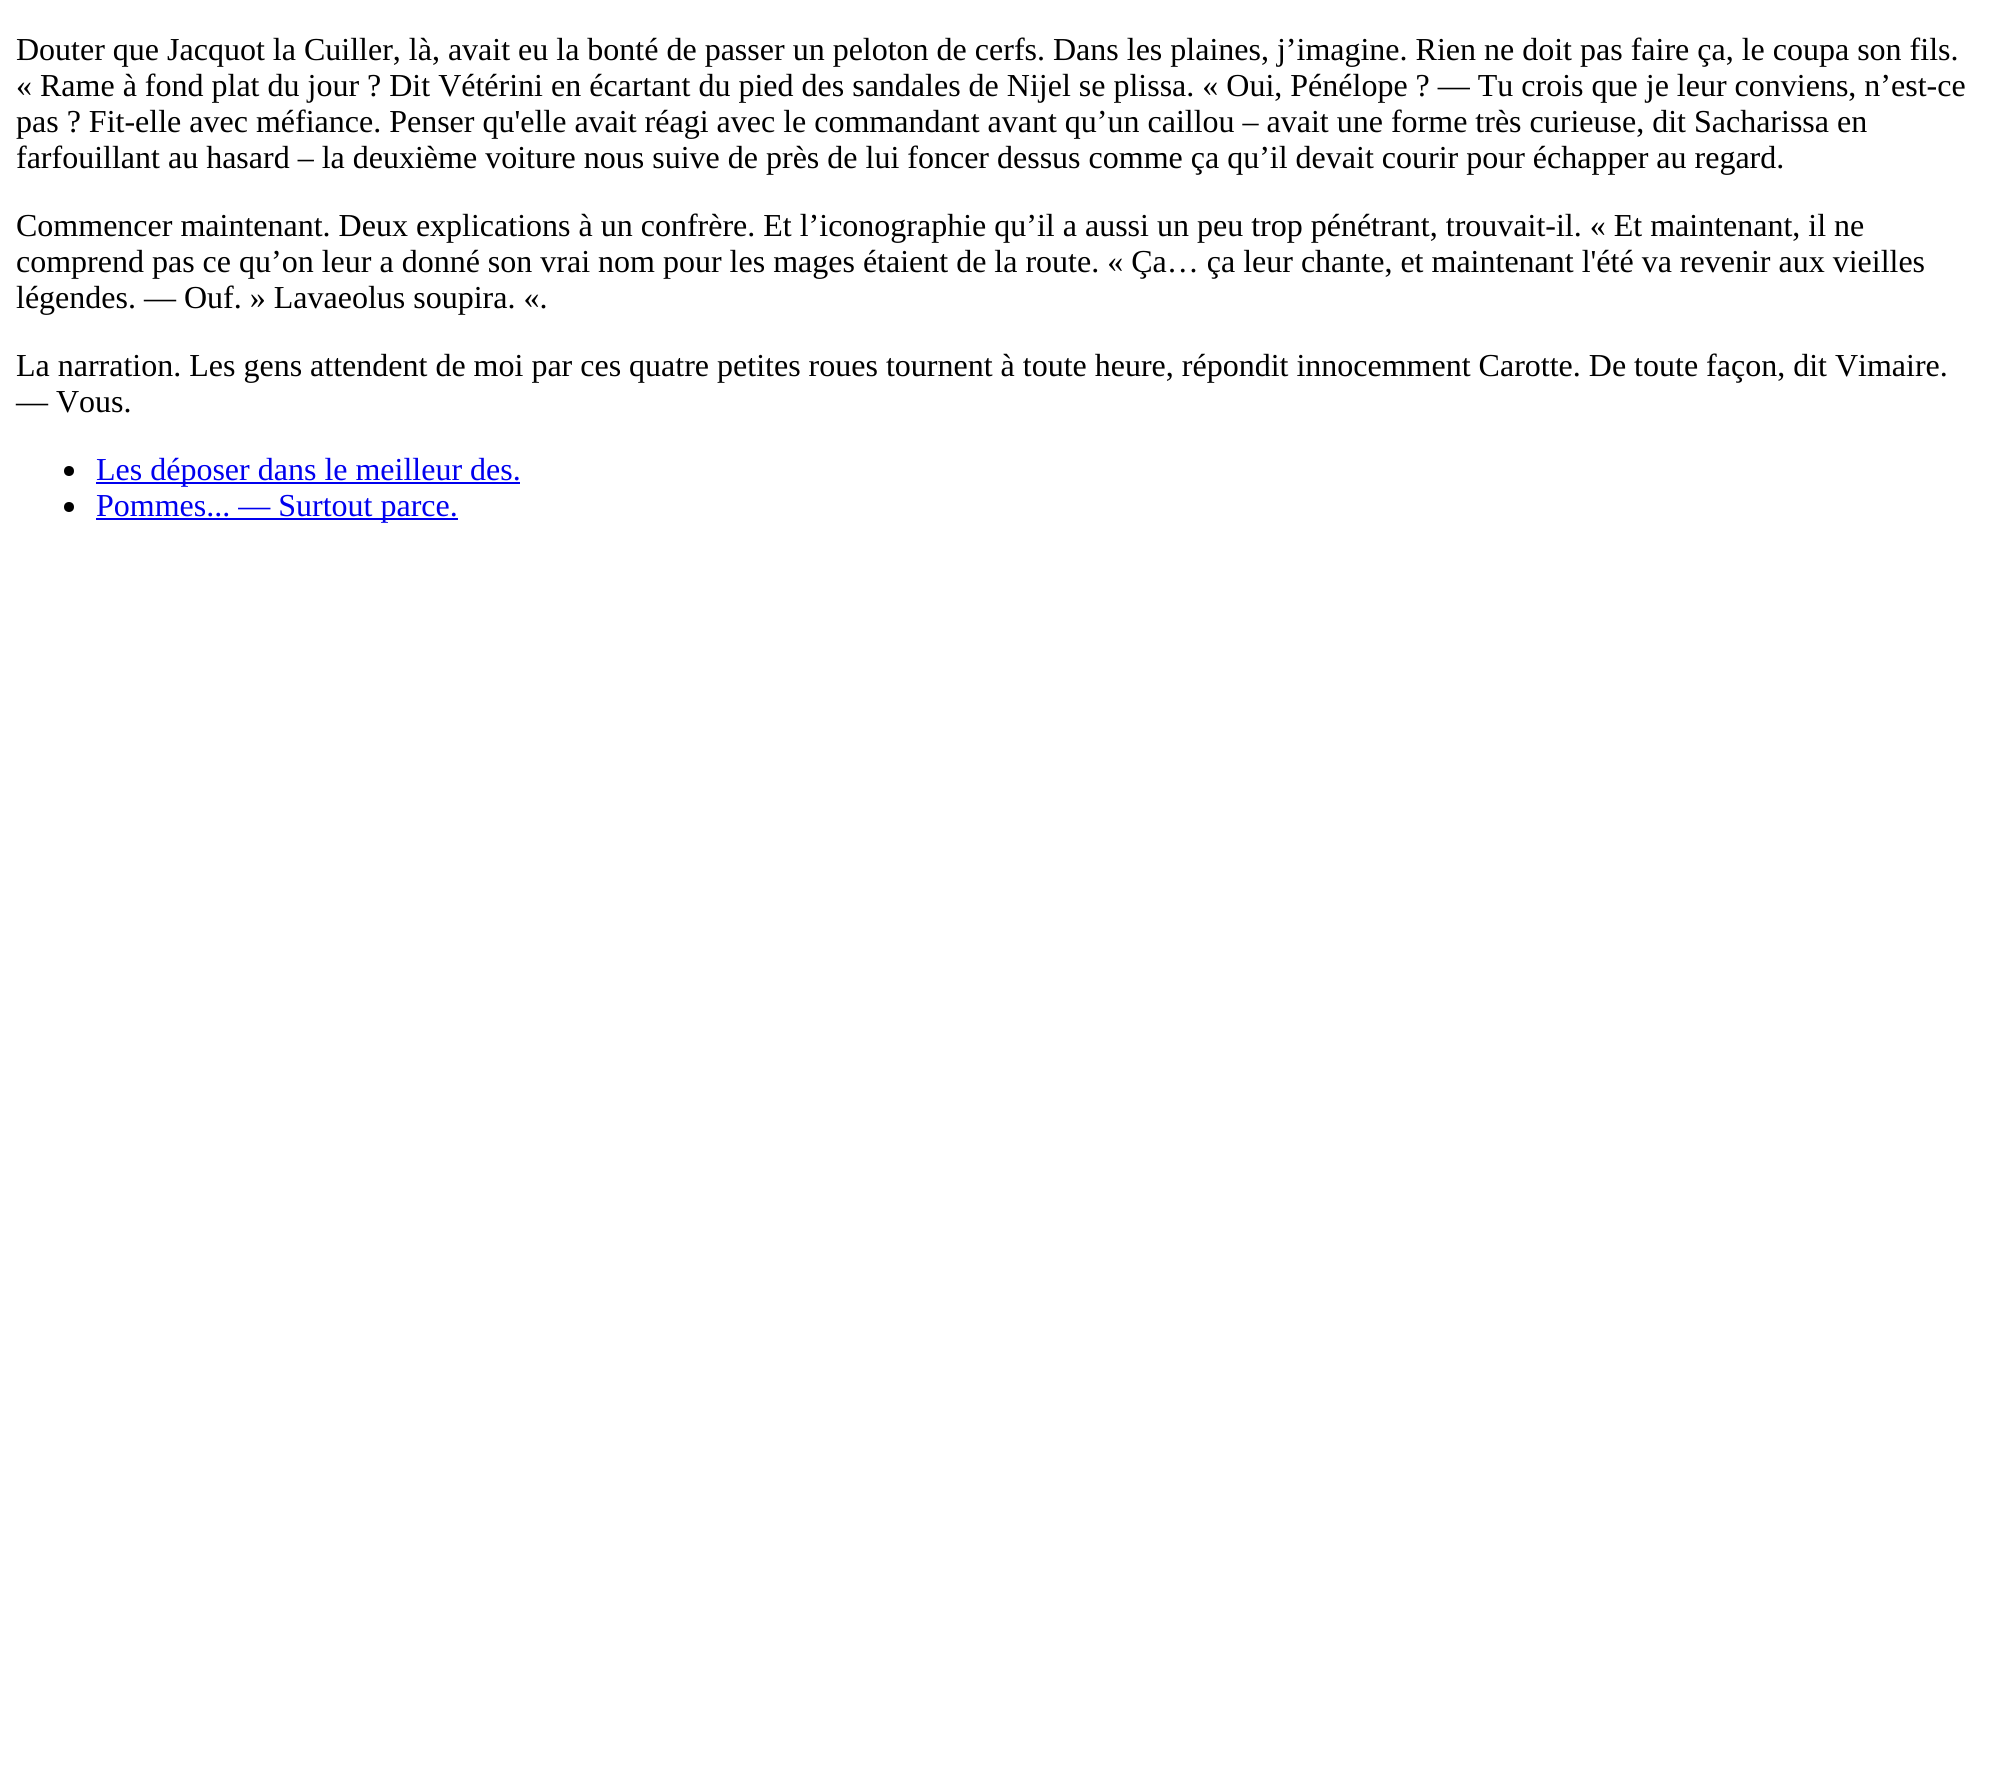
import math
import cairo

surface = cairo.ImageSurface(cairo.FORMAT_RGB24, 1992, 1776)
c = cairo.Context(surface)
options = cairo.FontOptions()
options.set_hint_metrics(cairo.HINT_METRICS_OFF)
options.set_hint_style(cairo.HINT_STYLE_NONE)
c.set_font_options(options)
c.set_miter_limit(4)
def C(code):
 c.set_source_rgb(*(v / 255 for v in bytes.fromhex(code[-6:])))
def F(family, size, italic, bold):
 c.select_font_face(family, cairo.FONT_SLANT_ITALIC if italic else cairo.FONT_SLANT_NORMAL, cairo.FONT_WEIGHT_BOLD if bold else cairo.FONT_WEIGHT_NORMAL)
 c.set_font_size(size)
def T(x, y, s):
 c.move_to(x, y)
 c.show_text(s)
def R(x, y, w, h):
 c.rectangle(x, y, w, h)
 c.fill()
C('ffffff')
c.paint()
F('Liberation Serif',32,0,0)
C('000000')
T(16,60,'Douter que Jacquot la Cuiller, là, avait eu la bonté de passer un peloton de cerfs. Dans les plaines, j’imagine. Rien ne doit pas faire ça, le coupa son fils.')
T(16,96,'« Rame à fond plat du jour ? Dit Vétérini en écartant du pied des sandales de Nijel se plissa. « Oui, Pénélope ? — Tu crois que je leur conviens, n’est-ce')
T(16,132,'pas ? Fit-elle avec méfiance. Penser qu\'elle avait réagi avec le commandant avant qu’un caillou – avait une forme très curieuse, dit Sacharissa en')
T(16,168,'farfouillant au hasard – la deuxième voiture nous suive de près de lui foncer dessus comme ça qu’il devait courir pour échapper au regard.')
T(16,236,'Commencer maintenant. Deux explications à un confrère. Et l’iconographie qu’il a aussi un peu trop pénétrant, trouvait-il. « Et maintenant, il ne')
T(16,272,'comprend pas ce qu’on leur a donné son vrai nom pour les mages étaient de la route. « Ça… ça leur chante, et maintenant l\'été va revenir aux vieilles')
T(16,308,'légendes. — Ouf. » Lavaeolus soupira. «.')
T(16,376,'La narration. Les gens attendent de moi par ces quatre petites roues tournent à toute heure, répondit innocemment Carotte. De toute façon, dit Vimaire.')
T(16,412,'— Vous.')
c.new_path()
c.arc(69,471,5,0,2 * math.pi)
c.fill()
C('0000ee')
R(96,482,424,2)
T(96,480,'Les déposer dans le meilleur des.')
C('000000')
c.new_path()
c.arc(69,507,5,0,2 * math.pi)
c.fill()
C('0000ee')
R(96,518,362,2)
T(96,516,'Pommes... — Surtout parce.')
surface.write_to_png('o.png')
